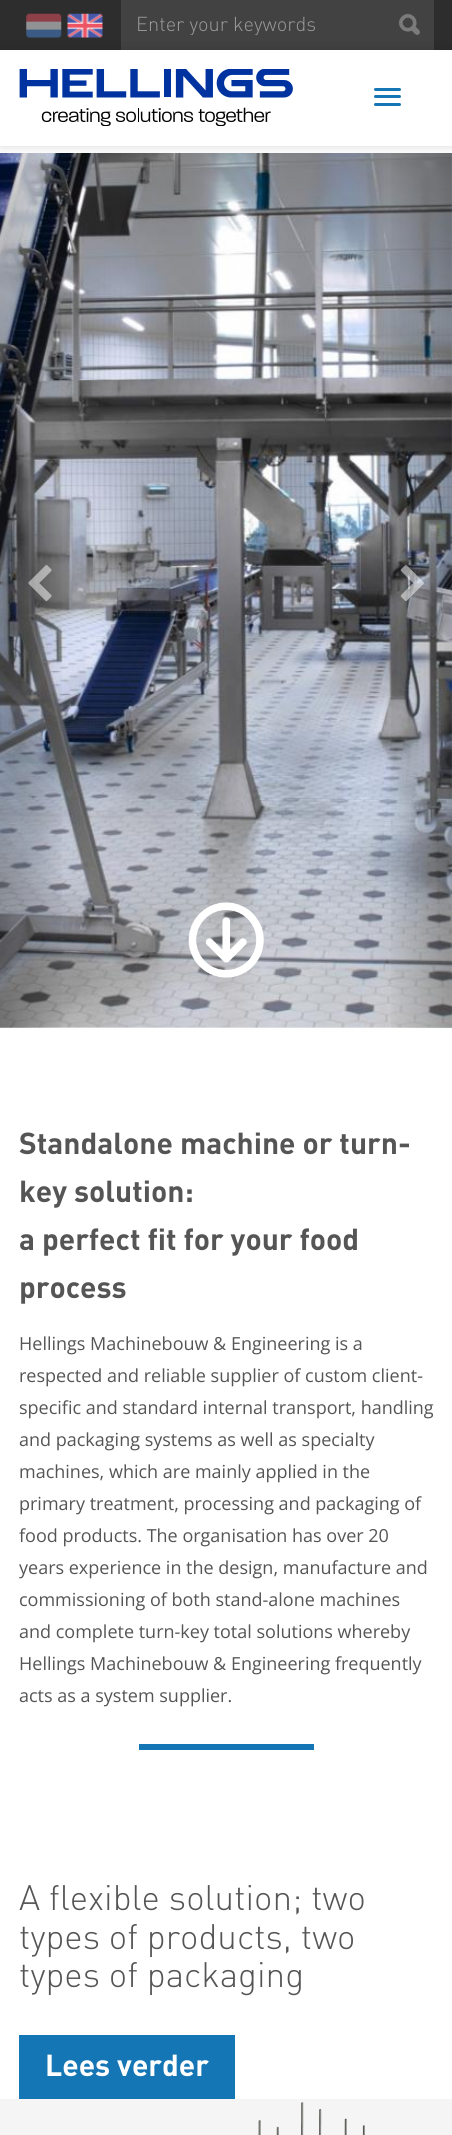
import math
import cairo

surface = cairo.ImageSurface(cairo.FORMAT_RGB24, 452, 2135)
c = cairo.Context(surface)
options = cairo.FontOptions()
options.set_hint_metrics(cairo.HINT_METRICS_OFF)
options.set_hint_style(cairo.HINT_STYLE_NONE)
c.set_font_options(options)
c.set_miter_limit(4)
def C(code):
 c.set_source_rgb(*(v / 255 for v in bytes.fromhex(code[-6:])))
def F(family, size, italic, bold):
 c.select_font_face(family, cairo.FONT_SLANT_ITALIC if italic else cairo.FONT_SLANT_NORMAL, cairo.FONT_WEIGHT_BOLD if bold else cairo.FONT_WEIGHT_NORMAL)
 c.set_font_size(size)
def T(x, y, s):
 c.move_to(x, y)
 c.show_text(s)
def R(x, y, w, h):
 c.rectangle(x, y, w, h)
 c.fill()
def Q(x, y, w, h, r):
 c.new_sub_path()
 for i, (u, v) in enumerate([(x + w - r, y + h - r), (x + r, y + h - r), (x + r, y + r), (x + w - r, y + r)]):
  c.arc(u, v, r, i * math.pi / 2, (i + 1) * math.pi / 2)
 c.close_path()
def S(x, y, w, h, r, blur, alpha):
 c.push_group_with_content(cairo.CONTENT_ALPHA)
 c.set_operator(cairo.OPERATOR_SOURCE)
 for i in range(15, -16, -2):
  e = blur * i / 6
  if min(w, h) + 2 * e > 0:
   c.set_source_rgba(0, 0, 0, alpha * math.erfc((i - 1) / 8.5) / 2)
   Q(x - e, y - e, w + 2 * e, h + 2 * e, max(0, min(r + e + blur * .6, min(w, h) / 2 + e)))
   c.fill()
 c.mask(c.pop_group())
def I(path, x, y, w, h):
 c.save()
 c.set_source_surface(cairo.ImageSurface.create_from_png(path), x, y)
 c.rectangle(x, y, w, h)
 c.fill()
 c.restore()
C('ffffff')
c.paint()
C('2d2d2d')
R(0,0,452,50)
I('1.png',26,13,36,25)
I('2.png',67,13,36,25)
C('424242')
R(121,0,313,50)
c.save()
c.rectangle(136,15,283,20)
c.clip()
F('DIN Light',20,0,0)
C('999999')
T(136,31,'Enter your keywords')
c.restore()
I('3.png',398,13,22,22)
C('eeeeee')
R(0,153,452,875)
I('5.png',0,153,452,875)
gradient = cairo.LinearGradient(0,590,68,590)
gradient.add_color_stop_rgba(0,0,0,0,.25)
gradient.add_color_stop_rgba(1,0,0,0,0)
c.set_source(gradient)
R(0,153,62,875)
gradient = cairo.LinearGradient(385,590,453,590)
gradient.add_color_stop_rgba(0,0,0,0,0)
gradient.add_color_stop_rgba(1,0,0,0,.25)
c.set_source(gradient)
R(391,153,61,875)
c.save()
c.set_fill_rule(cairo.FILL_RULE_EVEN_ODD)
c.new_path()
c.move_to(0,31)
c.line_to(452,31)
c.line_to(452,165)
c.line_to(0,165)
c.close_path()
c.move_to(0,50)
c.line_to(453,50)
c.line_to(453,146)
c.line_to(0,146)
c.close_path()
c.clip()
C('000000')
S(0,50,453,96,0,6,.15)
c.restore()
I('4.png',19,69,274,57)
C('1476b4')
Q(374,88,27,3,1.5)
c.fill()
Q(374,95,27,3,1.5)
c.fill()
Q(374,103,27,3,1.5)
c.fill()
I('6.png',28,565,24,36)
I('7.png',400,565,24,36)
I('8.png',188,902,76,76)
F('DIN',30,0,1)
C('555555')
T(19,1154,'Standalone machine or turn-')
T(19,1202,'key solution:')
T(19,1250,'a perfect fit for your food')
T(19,1298,'process')
F('Open Sans',18,0,0)
T(19,1350,'Hellings Machinebouw & Engineering is a')
T(19,1382,'respected and reliable supplier of custom client-')
T(19,1414,'specific and standard internal transport, handling')
T(19,1446,'and packaging systems as well as specialty')
T(19,1478,'machines, which are mainly applied in the')
T(19,1510,'primary treatment, processing and packaging of')
T(19,1542,'food products. The organisation has over 20')
T(19,1574,'years experience in the design, manufacture and')
T(19,1606,'commissioning of both stand-alone machines')
T(19,1638,'and complete turn-key total solutions whereby')
T(19,1670,'Hellings Machinebouw & Engineering frequently')
T(19,1702,'acts as a system supplier.')
C('1476b4')
R(139,1744,175,6)
F('DIN Light',35,0,0)
C('555555')
T(19,1910,'A flexible solution; two')
T(19,1949,'types of products, two')
T(19,1987,'types of packaging')
C('1476b4')
R(19,2035,216,64)
F('DIN',30,0,1)
C('ffffff')
T(45,2076,'Lees verder')
C('f5f5f5')
R(0,2099,452,36)
I('9.png',258,2102,107,33)
surface.write_to_png('o.png')
